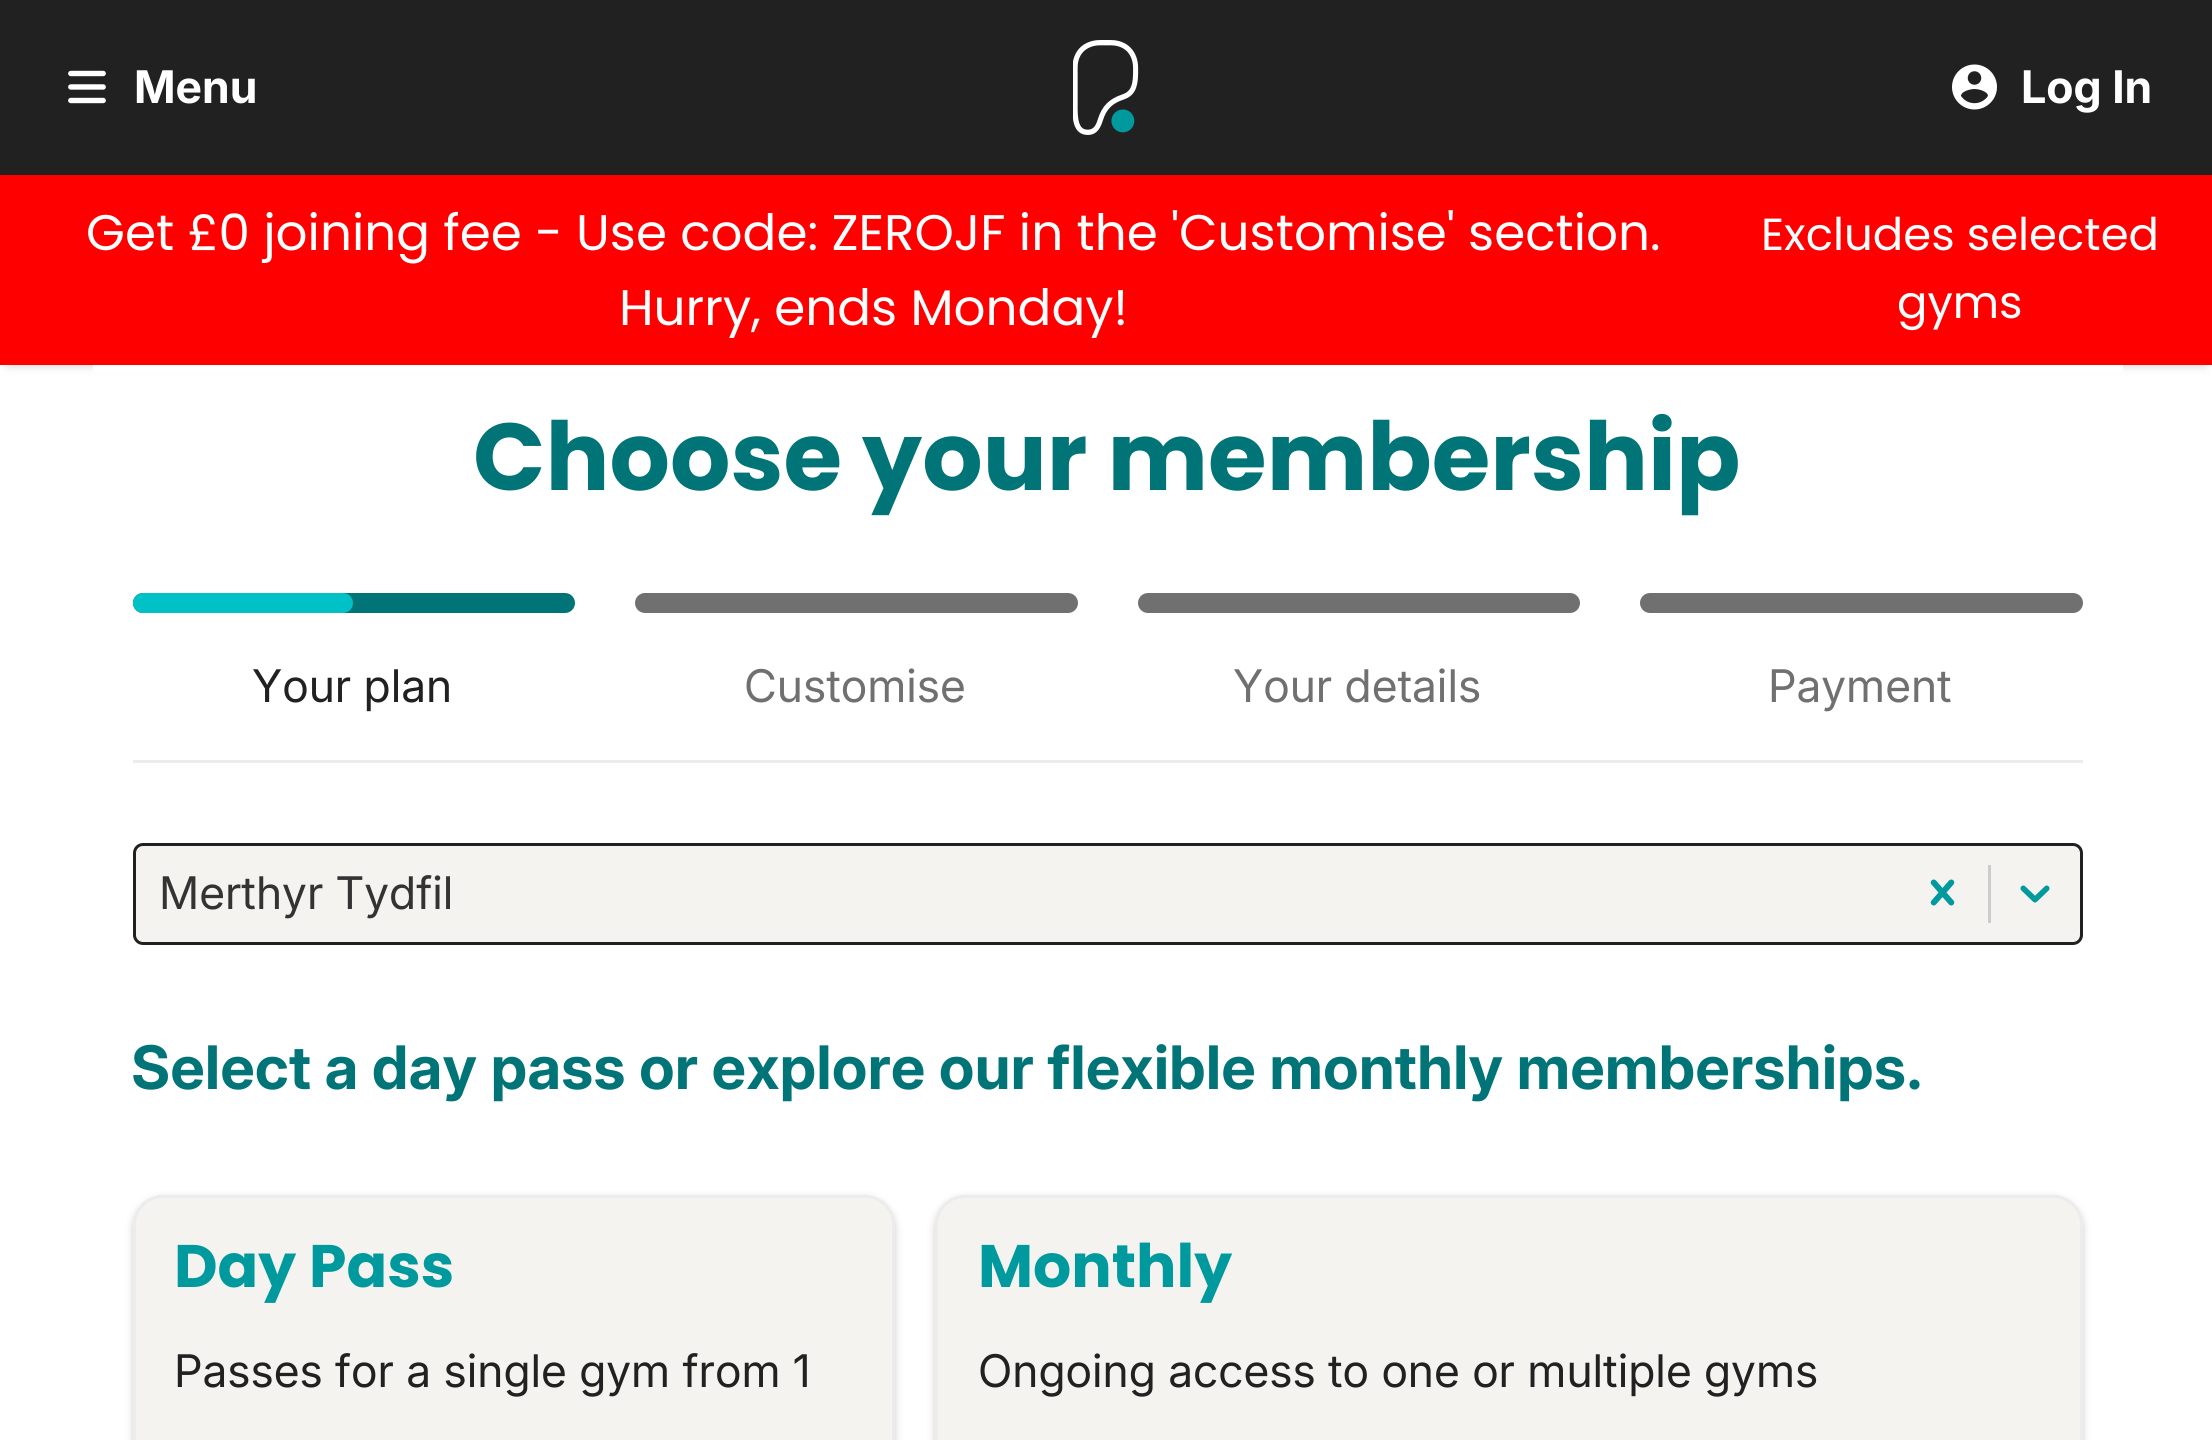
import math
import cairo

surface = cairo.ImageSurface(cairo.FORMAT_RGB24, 2212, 1440)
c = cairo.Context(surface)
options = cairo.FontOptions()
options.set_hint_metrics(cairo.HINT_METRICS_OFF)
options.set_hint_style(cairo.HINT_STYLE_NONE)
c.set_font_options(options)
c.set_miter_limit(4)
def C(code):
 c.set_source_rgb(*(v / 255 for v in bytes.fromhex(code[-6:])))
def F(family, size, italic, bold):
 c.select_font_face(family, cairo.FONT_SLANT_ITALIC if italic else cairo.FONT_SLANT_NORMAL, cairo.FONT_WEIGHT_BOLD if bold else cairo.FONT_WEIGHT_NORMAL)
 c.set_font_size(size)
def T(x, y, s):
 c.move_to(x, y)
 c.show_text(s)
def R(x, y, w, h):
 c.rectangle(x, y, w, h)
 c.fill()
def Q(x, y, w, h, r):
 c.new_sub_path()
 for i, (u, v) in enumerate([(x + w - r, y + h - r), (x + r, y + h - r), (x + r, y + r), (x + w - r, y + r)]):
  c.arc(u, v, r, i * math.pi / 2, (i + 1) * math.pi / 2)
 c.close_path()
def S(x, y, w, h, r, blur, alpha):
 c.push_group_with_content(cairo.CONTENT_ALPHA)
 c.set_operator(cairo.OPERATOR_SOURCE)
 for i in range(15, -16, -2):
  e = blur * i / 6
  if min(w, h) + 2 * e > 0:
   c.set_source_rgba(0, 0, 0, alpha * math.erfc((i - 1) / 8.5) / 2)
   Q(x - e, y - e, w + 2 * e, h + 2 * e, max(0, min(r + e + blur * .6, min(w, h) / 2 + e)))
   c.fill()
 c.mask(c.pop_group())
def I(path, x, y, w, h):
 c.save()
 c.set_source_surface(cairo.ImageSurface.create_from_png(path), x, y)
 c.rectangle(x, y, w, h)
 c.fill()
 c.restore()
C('ffffff')
c.paint()
C('000000')
S(8,190,2197,175,0,5,.2)
C('212121')
R(0,0,2212,175)
I('1.png',68,70,38,34)
F('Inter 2',45,0,1)
C('ffffff')
T(134,103,'Menu')
I('2.png',1073,40,66,95)
I('3.png',1952,64,45,46)
T(2021,103,'Log In')
C('ff0000')
R(0,175,2212,190)
F('Poppins',50,0,0)
C('ffffff')
T(86,250,'Get £0 joining fee - Use code: ZEROJF in the \'Customise\' section.')
T(619,325,'Hurry, ends Monday!')
F('Poppins',45,0,0)
T(1761,250,'Excludes selected')
T(1897,318,'gyms')
R(93,365,2030,8)
F('Poppins',95,0,1)
C('007477')
T(473,490,'Choose your membership')
C('ececec')
R(133,760,1950,3)
C('007477')
Q(133,593,442,20,10)
c.fill()
C('00c1c6')
Q(133,593,220,20,10)
c.fill()
F('Inter',45,0,0)
C('212121')
T(252,702,'Your plan')
C('707070')
Q(635,593,443,20,10)
c.fill()
T(744,702,'Customise')
Q(1138,593,442,20,10)
c.fill()
T(1233,702,'Your details')
Q(1640,593,443,20,10)
c.fill()
T(1768,702,'Payment')
C('f5f3ef')
Q(134.5,844.5,1947,99,8.5)
c.fill_preserve()
C('212121')
c.set_line_width(3)
c.stroke()
C('333333')
T(159,909,'Merthyr Tydfil')
I('4.png',1930,879,25,27)
C('cccccc')
R(1988,865,3,58)
I('5.png',2020,885,30,18)
F('Inter',60,0,1)
C('007477')
T(131,1089,'Select a day pass or explore our flexible monthly memberships.')
C('000000')
S(133,1198,762,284,30,4,.2)
C('f5f3ef')
Q(134.5,1196.5,759,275,28.5)
c.fill_preserve()
C('ececec')
c.stroke()
F('Poppins',60,0,1)
C('00999d')
T(174,1287,'Day Pass')
F('Inter',45,0,0)
C('212121')
T(174,1387,'Passes for a single gym from 1')
C('000000')
S(935,1198,1148,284,30,4,.2)
C('f5f3ef')
Q(936.5,1196.5,1145,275,28.5)
c.fill_preserve()
C('ececec')
c.stroke()
F('Poppins',60,0,1)
C('00999d')
T(978,1287,'Monthly')
F('Inter',45,0,0)
C('212121')
T(978,1387,'Ongoing access to one or multiple gyms')
surface.write_to_png('o.png')
